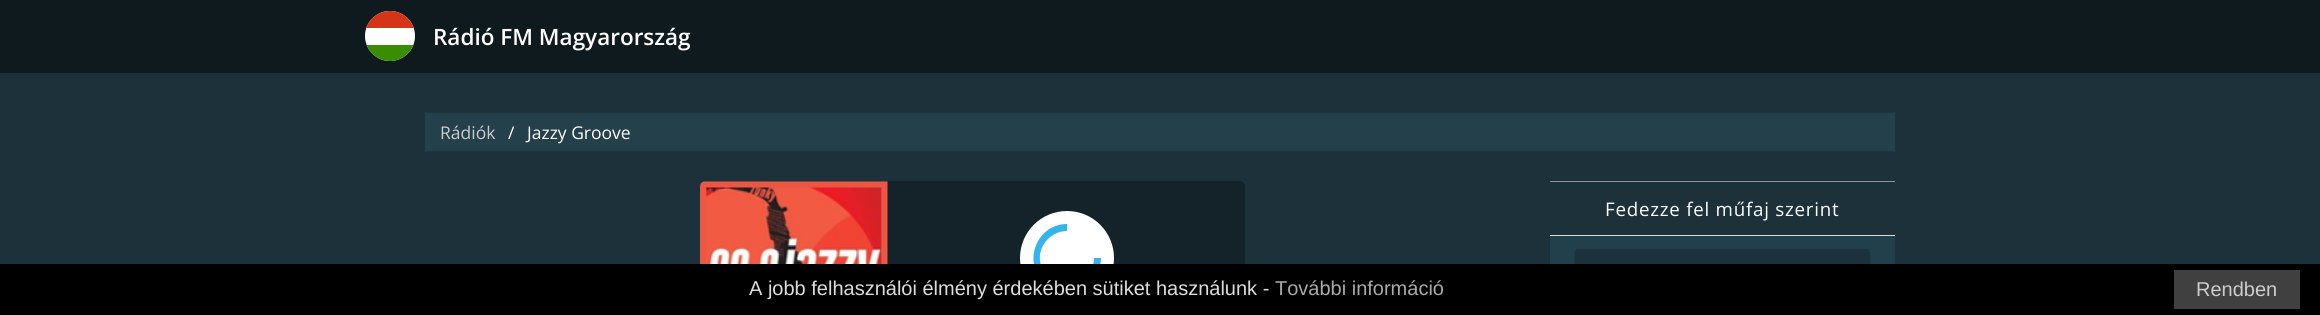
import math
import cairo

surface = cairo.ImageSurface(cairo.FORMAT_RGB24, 2320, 315)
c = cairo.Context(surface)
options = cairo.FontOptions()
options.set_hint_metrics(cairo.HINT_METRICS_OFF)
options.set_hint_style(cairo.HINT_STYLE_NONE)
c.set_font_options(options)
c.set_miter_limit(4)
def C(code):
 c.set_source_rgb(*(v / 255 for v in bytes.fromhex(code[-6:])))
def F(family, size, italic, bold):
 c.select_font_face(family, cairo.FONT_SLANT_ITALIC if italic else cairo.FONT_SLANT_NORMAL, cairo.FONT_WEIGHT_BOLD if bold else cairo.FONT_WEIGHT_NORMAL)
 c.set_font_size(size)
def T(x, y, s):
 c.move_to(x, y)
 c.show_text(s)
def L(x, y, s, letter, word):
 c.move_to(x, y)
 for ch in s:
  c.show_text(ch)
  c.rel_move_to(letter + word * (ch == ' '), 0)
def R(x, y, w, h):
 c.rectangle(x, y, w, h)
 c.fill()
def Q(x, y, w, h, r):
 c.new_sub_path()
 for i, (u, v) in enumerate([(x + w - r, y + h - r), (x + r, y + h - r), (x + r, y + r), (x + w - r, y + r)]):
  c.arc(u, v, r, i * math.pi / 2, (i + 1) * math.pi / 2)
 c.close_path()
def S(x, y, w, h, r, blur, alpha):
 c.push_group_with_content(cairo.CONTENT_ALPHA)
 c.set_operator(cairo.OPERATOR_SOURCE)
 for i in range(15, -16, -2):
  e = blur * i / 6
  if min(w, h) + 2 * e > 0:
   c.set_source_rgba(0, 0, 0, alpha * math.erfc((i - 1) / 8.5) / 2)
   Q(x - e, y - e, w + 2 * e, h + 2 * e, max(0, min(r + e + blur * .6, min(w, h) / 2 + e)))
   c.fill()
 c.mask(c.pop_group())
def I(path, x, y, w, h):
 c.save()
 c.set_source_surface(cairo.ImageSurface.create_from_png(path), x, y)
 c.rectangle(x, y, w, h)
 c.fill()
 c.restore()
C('1c313a')
c.paint()
C('0f1a1e')
R(0,0,2320,73)
C('ffffff')
c.arc(390,36,25,0,2 * math.pi)
c.fill()
c.save()
Q(365,11,50,50,25)
c.clip()
C('d43516')
R(366,11,48,17)
c.restore()
F('Open Sans SemiBold',22.5,0,0)
T(433,45,'Rádió FM Magyarország')
c.save()
Q(365,11,50,50,25)
c.clip()
C('388d00')
R(366,45,48,16)
c.restore()
C('24404b')
R(425,113,1470,38)
F('Open Sans',17.5,0,0)
C('cccccc')
T(440,139,'Rádiók')
C('ffffff')
T(508,139,'/')
T(527,139,'Jazzy Groove')
C('142229')
Q(700,181,545,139,5)
c.fill()
I('1.png',700,181,188,83)
C('ffffff')
c.arc(1067,258,47,0,2 * math.pi)
c.fill()
C('33b4ec')
c.new_path()
c.move_to(1067,292)
c.curve_to(1085,292,1101,276,1101,258)
c.line_to(1094,258)
c.curve_to(1094,267,1089,276,1082,281)
c.curve_to(1055,299,1025,262,1048,239)
c.curve_to(1053,234,1060,231,1067,231)
c.line_to(1067,224)
c.curve_to(1035,224,1021,266,1047,285)
c.curve_to(1053,290,1060,292,1067,292)
c.close_path()
c.fill()
C('939393')
R(1550,181,345,1)
C('dddddd')
R(1550,235,345,1)
F('Open Sans',18.75,0,0)
C('ffffff')
L(1605,216,'Fedezze fel műfaj szerint',.75,0)
C('21404b')
R(1550,236,345,28)
C('000000')
S(1575,251,295,45,2.5,1,.14)
C('1c313a')
Q(1575,249,295,45,2.5)
c.fill()
C('000000')
R(0,264,2320,51)
F('Liberation Sans',20,0,0)
C('dddddd')
T(749,295,'A jobb felhasználói élmény érdekében sütiket használunk -')
C('aaaaaa')
T(1275,295,'További információ')
C('404040')
R(2174,270,126,39)
C('cccccc')
T(2196,296,'Rendben')
surface.write_to_png('o.png')
